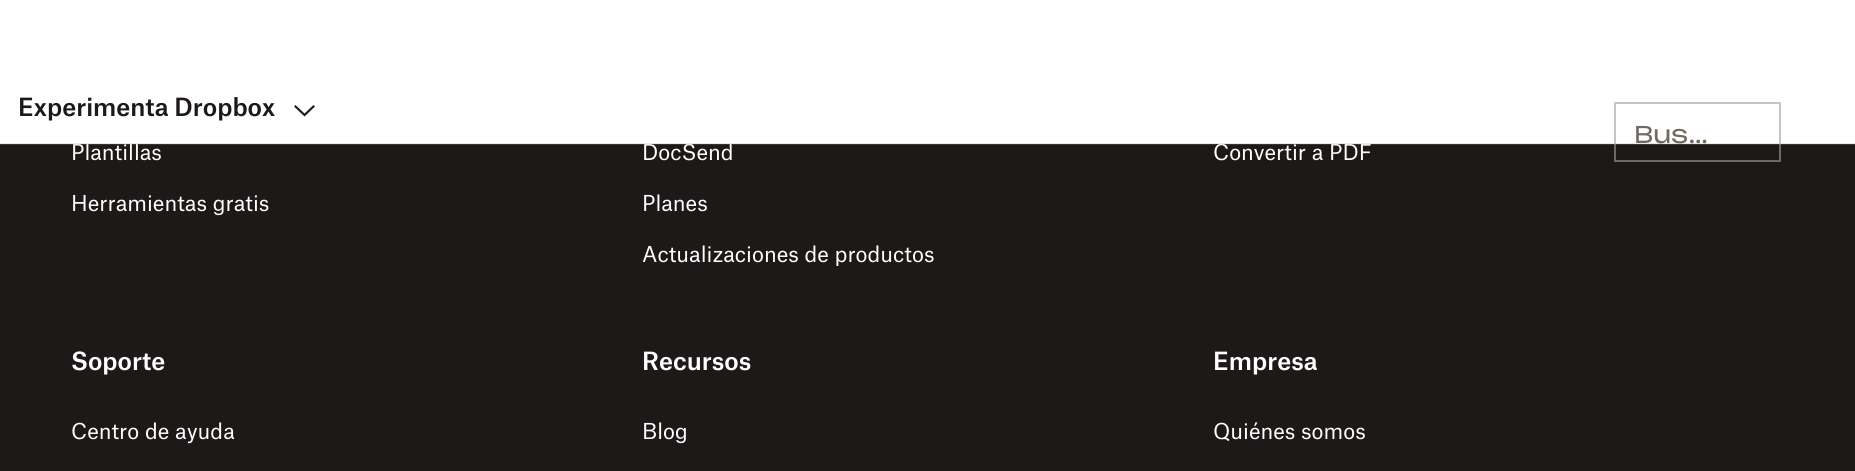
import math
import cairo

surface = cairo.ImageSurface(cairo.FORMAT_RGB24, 1855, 471)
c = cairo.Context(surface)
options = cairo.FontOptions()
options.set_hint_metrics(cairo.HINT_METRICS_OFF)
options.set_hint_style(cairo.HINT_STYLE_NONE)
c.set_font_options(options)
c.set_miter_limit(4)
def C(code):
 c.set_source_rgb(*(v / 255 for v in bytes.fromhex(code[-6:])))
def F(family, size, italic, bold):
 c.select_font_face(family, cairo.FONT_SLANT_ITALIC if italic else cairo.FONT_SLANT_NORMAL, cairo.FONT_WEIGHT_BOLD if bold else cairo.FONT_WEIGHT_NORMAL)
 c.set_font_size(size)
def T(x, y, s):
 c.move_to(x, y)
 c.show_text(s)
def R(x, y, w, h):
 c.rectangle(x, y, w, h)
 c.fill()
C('1e1919')
c.paint()
C('ffffff')
R(0,0,1855,144)
F('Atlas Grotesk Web',21,0,0)
T(71,160,'Plantillas')
T(642,160,'DocSend')
T(1213,160,'Convertir a PDF')
c.set_source_rgba(0.651,0.569,0.443,0.2)
R(0,143,1855,2)
F('Atlas Grotesk Web Medium',24,0,0)
C('1e1919')
T(18,116,'Experimenta Dropbox')
c.set_fill_rule(cairo.FILL_RULE_EVEN_ODD)
c.new_path()
c.move_to(294,106.5)
c.line_to(295.5,105)
c.line_to(304.5,113.5)
c.line_to(313.5,105)
c.line_to(315,106.5)
c.line_to(304.5,116.5)
c.close_path()
c.fill()
c.rectangle(1615,103,165,58)
c.set_source_rgba(0.651,0.62,0.573,0.6)
c.stroke()
F('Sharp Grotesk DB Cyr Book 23',24,0,0)
C('716a61')
T(1634,143,'Bus…')
F('Atlas Grotesk Web',21,0,0)
C('ffffff')
T(71,211,'Herramientas gratis')
T(642,211,'Planes')
T(642,262,'Actualizaciones de productos')
F('Atlas Grotesk Web Medium',24,0,0)
T(71,370,'Soporte')
F('Atlas Grotesk Web',21,0,0)
T(71,439,'Centro de ayuda')
F('Atlas Grotesk Web Medium',24,0,0)
T(642,370,'Recursos')
F('Atlas Grotesk Web',21,0,0)
T(642,439,'Blog')
F('Atlas Grotesk Web Medium',24,0,0)
T(1213,370,'Empresa')
F('Atlas Grotesk Web',21,0,0)
T(1213,439,'Quiénes somos')
surface.write_to_png('o.png')
